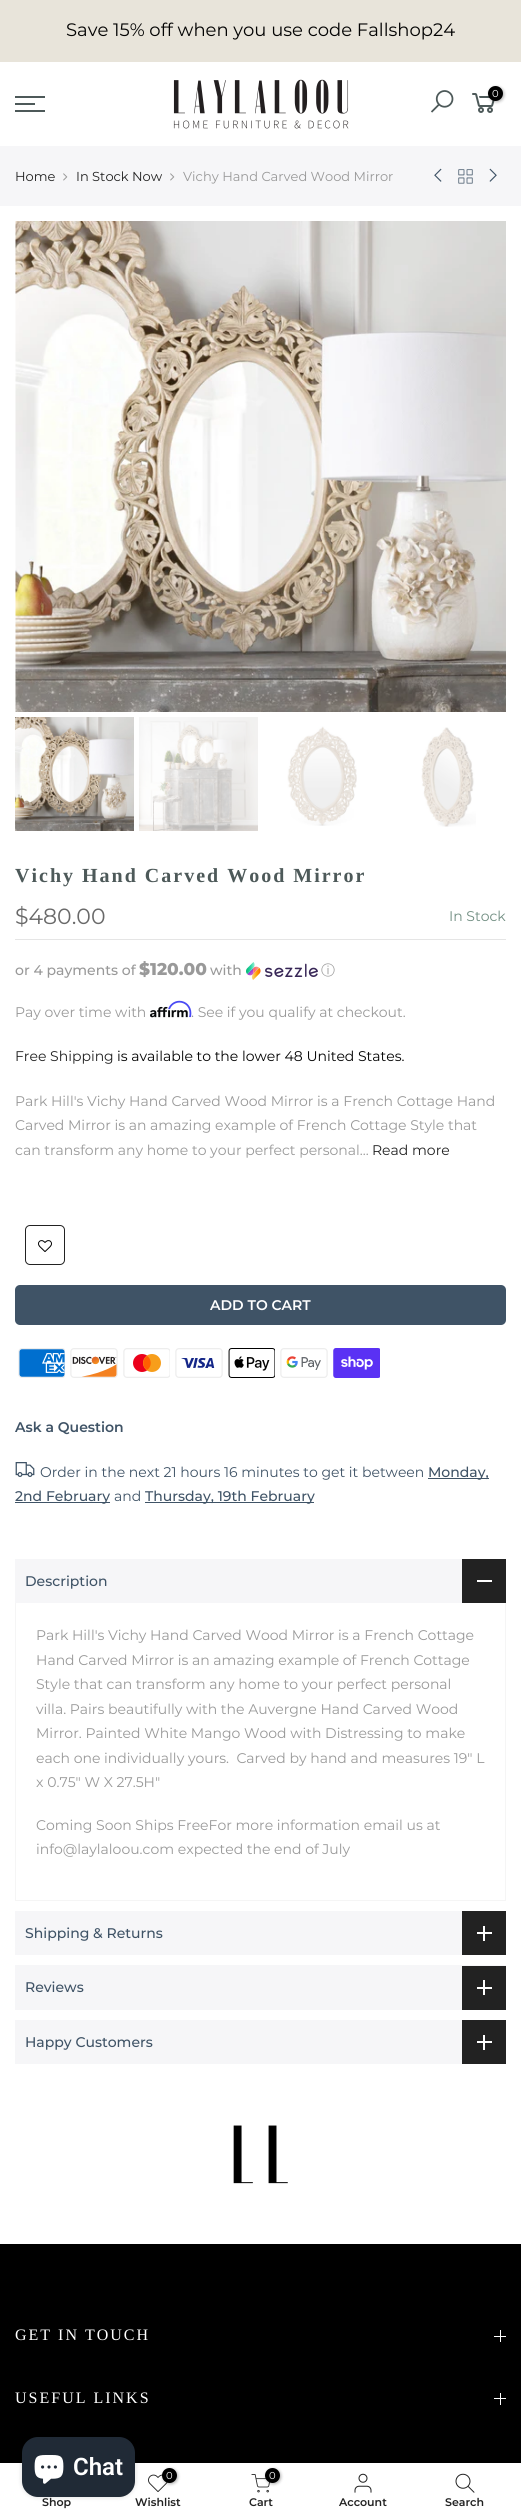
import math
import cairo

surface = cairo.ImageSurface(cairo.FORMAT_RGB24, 521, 2518)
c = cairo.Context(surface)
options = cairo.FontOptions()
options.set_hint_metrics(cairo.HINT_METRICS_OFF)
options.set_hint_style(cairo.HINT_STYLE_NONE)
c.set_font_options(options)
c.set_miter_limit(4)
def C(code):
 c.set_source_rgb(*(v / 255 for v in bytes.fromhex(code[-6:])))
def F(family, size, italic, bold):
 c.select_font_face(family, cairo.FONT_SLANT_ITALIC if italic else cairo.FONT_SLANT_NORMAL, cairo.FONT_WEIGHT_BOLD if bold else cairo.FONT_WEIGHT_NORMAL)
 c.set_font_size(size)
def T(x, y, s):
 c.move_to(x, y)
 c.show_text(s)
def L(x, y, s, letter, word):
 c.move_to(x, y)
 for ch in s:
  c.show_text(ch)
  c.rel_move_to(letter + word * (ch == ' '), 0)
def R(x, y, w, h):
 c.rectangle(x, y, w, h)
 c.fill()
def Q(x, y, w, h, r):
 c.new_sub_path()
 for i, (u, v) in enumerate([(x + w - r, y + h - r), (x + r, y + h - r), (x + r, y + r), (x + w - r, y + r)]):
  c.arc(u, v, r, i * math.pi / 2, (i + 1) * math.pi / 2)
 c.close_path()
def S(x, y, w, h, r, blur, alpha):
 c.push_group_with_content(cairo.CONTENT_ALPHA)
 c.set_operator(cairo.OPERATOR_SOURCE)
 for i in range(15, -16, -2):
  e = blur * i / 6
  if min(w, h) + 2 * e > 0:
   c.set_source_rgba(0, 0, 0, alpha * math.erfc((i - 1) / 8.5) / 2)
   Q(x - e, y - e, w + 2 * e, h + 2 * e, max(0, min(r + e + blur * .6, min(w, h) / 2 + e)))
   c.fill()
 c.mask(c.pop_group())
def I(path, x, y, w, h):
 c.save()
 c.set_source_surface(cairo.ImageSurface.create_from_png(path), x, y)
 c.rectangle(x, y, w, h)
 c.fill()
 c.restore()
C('ffffff')
c.paint()
C('e8e4da')
R(0,0,521,62)
F('Montserrat',18,0,0)
C('030303')
T(66,36,'Save 15% off when you use code Fallshop24')
I('1.png',173,79,176,50)
I('2.png',431,90,23,23)
I('3.png',472,93,23,20)
C('000000')
S(489,87,15,15,7.5,1.5,.3)
C('000000')
c.arc(495.5,93.5,7.5,0,2 * math.pi)
c.fill()
F('Montserrat',10,0,0)
C('ffffff')
T(492,97,'0')
C('4d5959')
R(15,96,30,2)
R(15,103,20,2)
R(15,110,30,2)
C('f6f6f8')
R(0,146,521,60)
F('Montserrat',13,0,0)
C('222222')
T(15,181,'Home')
I('4.png',63,173,5,8)
T(76,181,'In Stock Now')
I('4.png',170,173,5,8)
C('999999')
T(183,181,'Vichy Hand Carved Wood Mirror')
I('5.png',434,168,8,14)
I('6.png',458,169,15,15)
I('7.png',489,168,8,14)
I('8.png',15,221,491,491)
I('9.png',15,717,119,114)
I('10.png',139,717,119,114)
I('11.png',287,726,70,100)
I('12.png',421,727,55,100)
F('Liberation Serif',20,0,1)
C('4d5959')
L(15,882,'Vichy Hand Carved Wood Mirror',2,0)
C('e5e5e5')
R(15,939,491,1)
F('Montserrat',22,0,0)
C('696969')
T(15,924,'$480.00')
F('Montserrat',14,0,0)
C('708d81')
T(449,921,'In Stock')
F('Montserrat Medium',14,0,0)
C('999999')
T(15,975,'or 4 payments of')
F('Montserrat ExtraBold',17,0,0)
T(139,975,'$120.00')
F('Montserrat Medium',14,0,0)
T(210,975,'with')
I('13.png',246,962,72,18)
F('WenQuanYi Zen Hei Medium',14,0,0)
T(321,975,'ⓘ')
F('Montserrat',14,0,0)
T(15,1017,'Pay over time with')
I('15.png',150,1006,38,12)
I('14.png',168,1000,24,18)
T(191,1017,'. See if you qualify at checkout.')
C('222222')
T(15,1061,'Free Shipping')
C('030303')
T(117,1061,'is available to the lower 48 United States.')
C('999999')
T(15,1106,'Park Hill\'s Vichy Hand Carved Wood Mirror is a French Cottage Hand')
T(15,1130,'Carved Mirror is an amazing example of French Cottage Style that')
T(15,1155,'can transform any home to your perfect personal...')
C('222222')
T(372,1155,'Read more')
Q(25.5,1225.5,39,39,4.5)
c.set_line_width(1)
c.stroke()
I('16.png',38,1240,14,12)
c.new_path()
c.move_to(39,1240)
c.curve_to(41,1238,44,1237,46.5,1237.5)
c.curve_to(56.5,1239.5,55,1254.5,45,1254.5)
c.curve_to(43,1254.5,40.5,1253.5,39,1252)
c.move_to(39,1252)
c.curve_to(35.5,1248.5,35.5,1243.5,39,1240)
C('ffffff')
c.stroke()
C('3f5366')
Q(15,1285,491,40,5)
c.fill()
F('Montserrat SemiBold',14,0,0)
C('ffffff')
T(210,1310,'ADD TO CART')
I('17.png',18,1348,47,30)
I('18.png',70,1348,48,30)
I('19.png',123,1348,47,30)
I('20.png',175,1348,48,30)
I('21.png',228,1348,47,30)
I('22.png',280,1348,48,30)
I('23.png',333,1348,47,30)
C('3f5366')
T(15,1432,'Ask a Question')
I('24.png',15,1462,20,15)
F('Montserrat',14,0,0)
T(40,1477,'Order in the next 21 hours 16 minutes to get it between')
R(428,1478,61,1)
F('Montserrat Medium',14,0,0)
T(428,1477,'Monday,')
R(15,1502,95,1)
T(15,1501,'2nd February')
F('Montserrat',14,0,0)
T(114,1501,'and')
R(145,1502,169,1)
F('Montserrat Medium',14,0,0)
T(145,1501,'Thursday, 19th February')
C('f6f6f8')
R(15,1559,447,44)
C('3f5366')
T(25,1586,'Description')
C('222222')
R(462,1559,44,44)
C('ffffff')
R(477,1580,15,2)
C('f5f5f5')
R(505,1603,1,298)
R(15,1900,491,1)
R(15,1603,1,298)
F('Montserrat',14,0,0)
C('999999')
T(36,1640,'Park Hill\'s Vichy Hand Carved Wood Mirror is a French Cottage')
T(36,1665,'Hand Carved Mirror is an amazing example of French Cottage')
T(36,1689,'Style that can transform any home to your perfect personal')
T(36,1714,'villa. Pairs beautifully with the Auvergne Hand Carved Wood')
T(36,1738,'Mirror. Painted White Mango Wood with Distressing to make')
T(36,1763,'each one individually yours.  Carved by hand and measures 19" L')
T(36,1787,'x 0.75" W X 27.5H"')
T(36,1830,'Coming Soon Ships FreeFor more information email us at')
T(36,1854,'info@laylaloou.com expected the end of July')
C('f6f6f8')
R(15,1911,447,44)
F('Montserrat Medium',14,0,0)
C('3f5366')
T(25,1938,'Shipping & Returns')
C('222222')
R(462,1911,44,44)
C('ffffff')
R(483,1926,2,15)
R(477,1932,15,2)
C('f6f6f8')
R(15,1965,491,45)
C('3f5366')
T(25,1992,'Reviews')
C('222222')
R(462,1966,44,44)
C('ffffff')
R(483,1980,2,15)
R(477,1987,15,2)
C('f6f6f8')
R(15,2020,447,44)
C('3f5366')
T(25,2047,'Happy Customers')
C('222222')
R(462,2020,44,44)
C('ffffff')
R(483,2035,2,15)
R(477,2041,15,2)
I('25.png',233,2125,55,59)
C('000000')
R(0,2244,521,219)
F('Liberation Serif',16,0,0)
C('ffffff')
L(15,2340,'GET IN TOUCH',2,0)
R(500,2330,1,12)
R(494,2336,12,1)
L(15,2403,'USEFUL LINKS',2,0)
R(500,2393,1,12)
R(494,2398,12,1)
C('000000')
S(22,2437,113,60,16,2.5,.15)
C('202a36')
Q(22,2437,113,60,16)
c.fill()
I('26.png',34,2455,30,29)
F('Roboto SemiBold',24,0,0)
C('ffffff')
T(73,2475,'Chat')
F('Montserrat SemiBold',11,0,0)
C('222222')
T(42,2506,'Shop')
I('27.png',148,2474,20,18)
C('000000')
S(163,2469,15,15,7.5,1.5,.3)
C('000000')
c.arc(169.5,2475.5,7.5,0,2 * math.pi)
c.fill()
F('Montserrat',10,0,0)
C('ffffff')
T(166,2479,'0')
F('Montserrat SemiBold',11,0,0)
C('222222')
T(135,2506,'Wishlist')
I('28.png',251,2474,19,19)
C('000000')
S(266,2469,15,15,7.5,1.5,.3)
C('000000')
c.arc(272.5,2475.5,7.5,0,2 * math.pi)
c.fill()
F('Montserrat',10,0,0)
C('ffffff')
T(269,2479,'0')
F('Montserrat SemiBold',11,0,0)
C('222222')
T(249,2506,'Cart')
I('29.png',354,2473,18,20)
T(339,2506,'Account')
I('30.png',455,2473,20,20)
T(445,2506,'Search')
surface.write_to_png('o.png')
